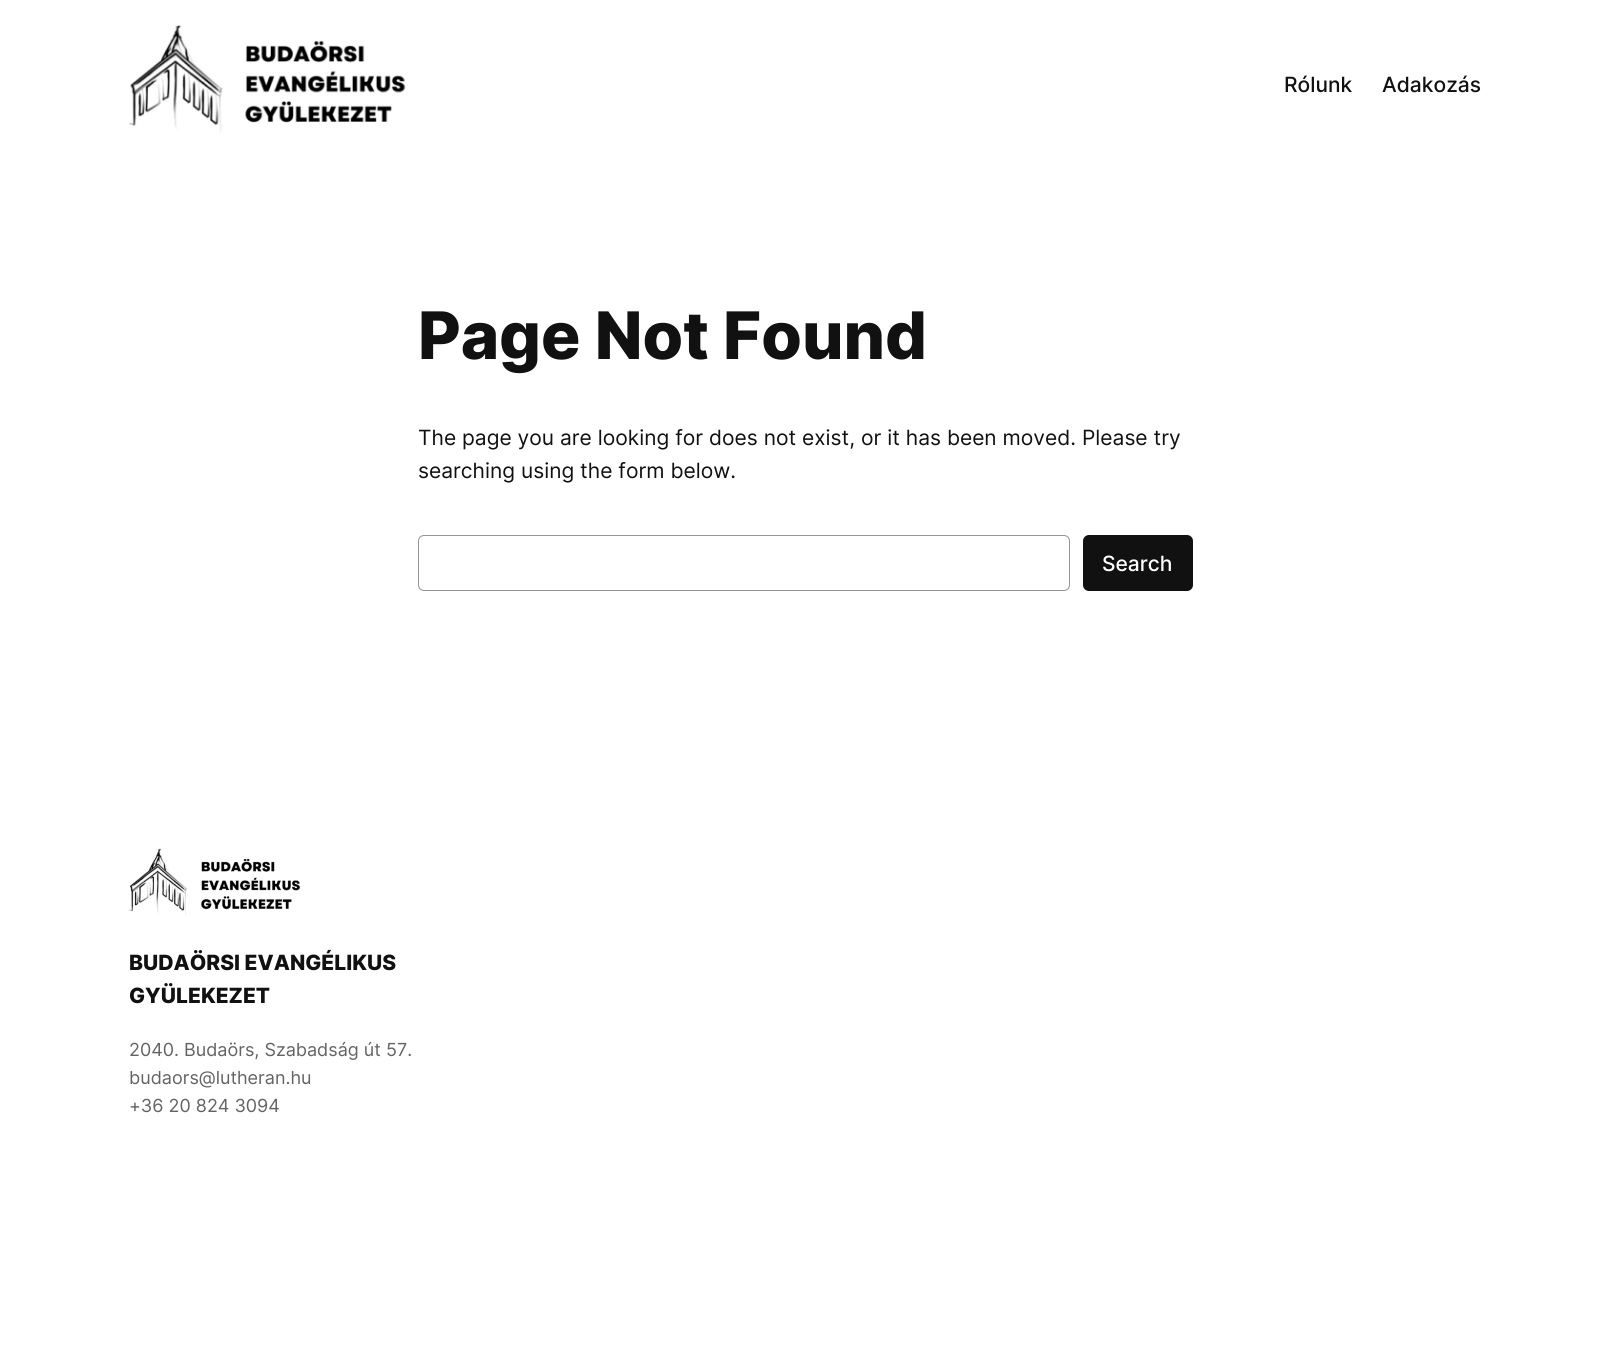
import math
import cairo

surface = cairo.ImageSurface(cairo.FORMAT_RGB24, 1610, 1349)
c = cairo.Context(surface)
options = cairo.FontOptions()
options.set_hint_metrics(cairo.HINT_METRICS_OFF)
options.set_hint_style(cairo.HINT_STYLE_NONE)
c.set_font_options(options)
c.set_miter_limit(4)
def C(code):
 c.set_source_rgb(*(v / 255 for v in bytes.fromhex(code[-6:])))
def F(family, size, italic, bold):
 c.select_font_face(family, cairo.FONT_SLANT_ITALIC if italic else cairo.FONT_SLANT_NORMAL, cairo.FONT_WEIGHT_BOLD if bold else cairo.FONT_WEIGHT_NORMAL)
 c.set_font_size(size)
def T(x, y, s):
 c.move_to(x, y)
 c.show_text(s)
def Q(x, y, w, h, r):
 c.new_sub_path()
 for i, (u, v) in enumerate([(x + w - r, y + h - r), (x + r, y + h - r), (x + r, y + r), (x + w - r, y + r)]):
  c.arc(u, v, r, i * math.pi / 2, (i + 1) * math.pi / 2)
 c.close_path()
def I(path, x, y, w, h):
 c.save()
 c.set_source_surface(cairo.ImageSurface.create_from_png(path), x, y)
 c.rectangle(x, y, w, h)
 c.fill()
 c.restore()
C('ffffff')
c.paint()
I('1.png',128,25,278,109)
F('Inter Medium',21,0,0)
C('111111')
T(1284,92,'Rólunk')
T(1382,92,'Adakozás')
F('Inter ExtraBold',65.5,0,0)
T(418,359,'Page Not Found')
F('Inter',21,0,0)
T(418,445,'The page you are looking for does not exist, or it has been moved. Please try')
T(418,478,'searching using the form below.')
Q(418.5,535.5,651,55,5.5)
C('949494')
c.set_line_width(1)
c.stroke()
C('111111')
Q(1083,535,110,56,6)
c.fill()
F('Inter Medium',21,0,0)
C('ffffff')
T(1102,571,'Search')
I('2.png',128,848,173,68)
F('Inter ExtraBold',21,0,0)
C('111111')
T(129,970,'BUDAÖRSI EVANGÉLIKUS')
T(129,1003,'GYÜLEKEZET')
F('Inter',18,0,0)
C('636363')
T(129,1056,'2040. Budaörs, Szabadság út 57.')
T(129,1084,'budaors@lutheran.hu')
T(129,1112,'+36 20 824 3094')
surface.write_to_png('o.png')
